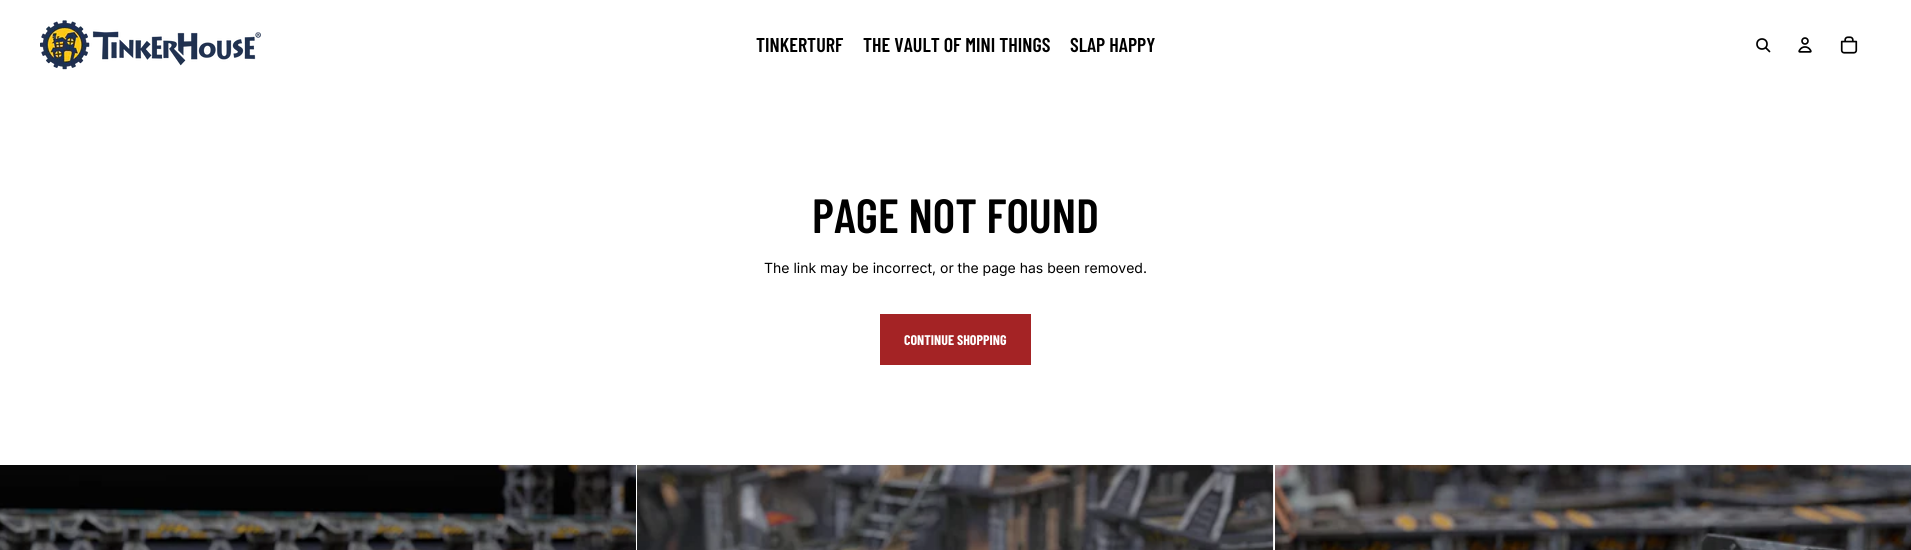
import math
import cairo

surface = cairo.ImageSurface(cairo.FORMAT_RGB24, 1911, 550)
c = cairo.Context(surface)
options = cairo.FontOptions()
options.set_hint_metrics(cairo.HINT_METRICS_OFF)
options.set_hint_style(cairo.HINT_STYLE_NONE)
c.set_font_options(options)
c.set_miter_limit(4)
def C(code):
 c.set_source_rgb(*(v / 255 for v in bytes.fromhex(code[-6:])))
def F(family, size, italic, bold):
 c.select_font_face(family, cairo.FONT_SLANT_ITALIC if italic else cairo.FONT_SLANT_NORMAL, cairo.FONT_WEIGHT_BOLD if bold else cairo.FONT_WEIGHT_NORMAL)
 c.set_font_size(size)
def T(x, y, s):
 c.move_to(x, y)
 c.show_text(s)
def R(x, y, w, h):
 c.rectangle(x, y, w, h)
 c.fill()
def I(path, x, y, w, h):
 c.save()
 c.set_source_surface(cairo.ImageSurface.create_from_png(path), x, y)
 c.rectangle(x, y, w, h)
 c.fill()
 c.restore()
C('ffffff')
c.paint()
I('1.png',40,20,221,50)
F('Barlow Condensed SemiBold',20,0,0)
C('000000')
T(756,52,'TINKERTURF')
T(863,52,'THE VAULT OF MINI THINGS')
T(1070,52,'SLAP HAPPY')
c.new_path()
c.arc(1762,44,5,0,2 * math.pi)
c.set_line_width(1.7)
c.stroke()
c.new_path()
c.move_to(1766,48)
c.line_to(1769.5,51.5)
c.set_line_cap(cairo.LINE_CAP_ROUND)
c.set_line_join(cairo.LINE_JOIN_ROUND)
c.stroke()
I('2.png',1798,37,14,16)
I('3.png',1840,36,18,18)
F('Barlow Condensed SemiBold',48,0,0)
T(812,233,'PAGE NOT FOUND')
F('Inter',14,0,0)
T(764,273,'The link may be incorrect, or the page has been removed.')
C('a42325')
R(880,314,151,51)
F('Barlow Condensed',14,0,1)
C('ffffff')
T(904,345,'CONTINUE SHOPPING')
I('4.png',0,465,636,85)
C('f1f1f1')
R(1273,465,1,85)
I('5.png',637,465,636,85)
I('6.png',1275,465,636,85)
surface.write_to_png('o.png')
